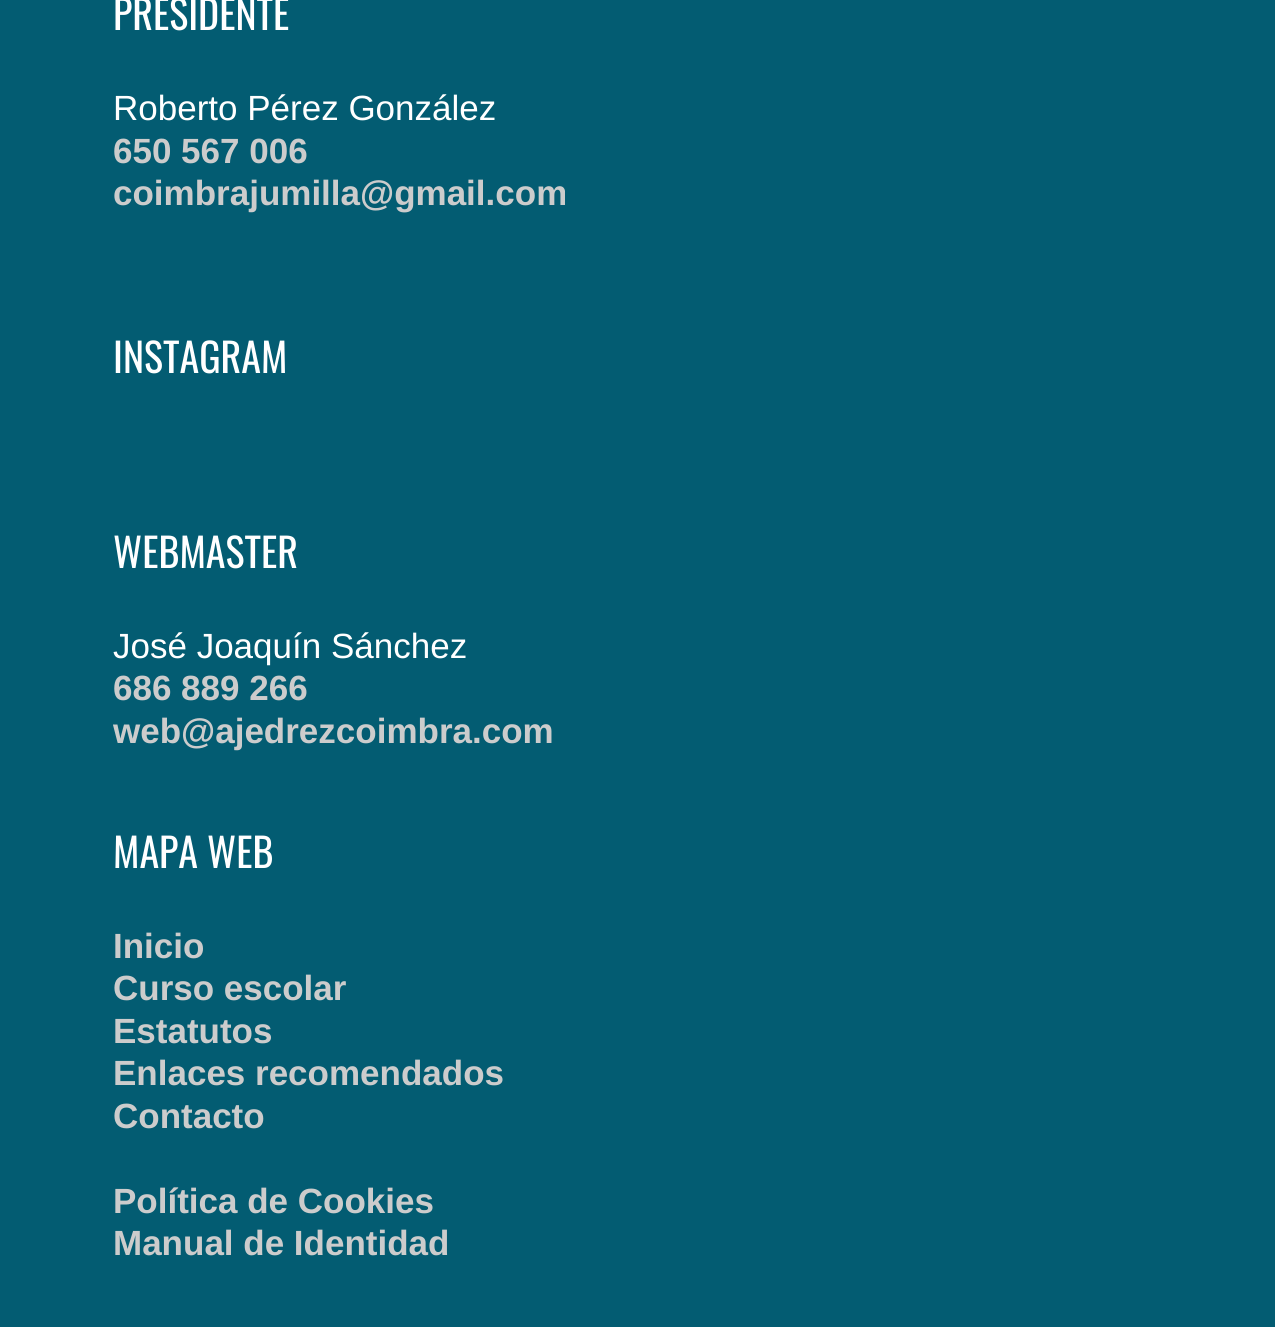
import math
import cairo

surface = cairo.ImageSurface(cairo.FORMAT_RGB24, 1275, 1327)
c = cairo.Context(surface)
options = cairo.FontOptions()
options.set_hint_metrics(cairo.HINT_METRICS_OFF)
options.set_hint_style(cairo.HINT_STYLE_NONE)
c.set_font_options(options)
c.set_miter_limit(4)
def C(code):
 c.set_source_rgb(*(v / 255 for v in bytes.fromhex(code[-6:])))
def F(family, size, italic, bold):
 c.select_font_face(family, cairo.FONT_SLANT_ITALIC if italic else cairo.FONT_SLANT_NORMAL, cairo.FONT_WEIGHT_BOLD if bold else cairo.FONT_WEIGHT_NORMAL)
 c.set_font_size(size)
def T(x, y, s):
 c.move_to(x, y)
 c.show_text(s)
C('035c72')
c.paint()
F('Oswald',40,0,0)
C('ffffff')
T(113,30,'PRESIDENTE')
F('Liberation Sans',35,0,0)
T(113,120,'Roberto Pérez González')
F('Liberation Sans',35,0,1)
C('cccccc')
T(113,163,'650 567 006')
T(113,205,'coimbrajumilla@gmail.com')
F('Oswald',40,0,0)
C('ffffff')
T(113,373,'INSTAGRAM')
T(113,568,'WEBMASTER')
F('Liberation Sans',35,0,0)
T(113,658,'José Joaquín Sánchez')
F('Liberation Sans',35,0,1)
C('cccccc')
T(113,700,'686 889 266')
c.save()
c.rectangle(113,0,1050,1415)
c.clip()
T(113,743,'web@ajedrezcoimbra.com')
c.restore()
F('Oswald',40,0,0)
C('ffffff')
T(113,868,'MAPA WEB')
F('Liberation Sans',35,0,1)
C('cccccc')
T(113,958,'Inicio')
T(113,1000,'Curso escolar')
T(113,1043,'Estatutos')
T(113,1085,'Enlaces recomendados')
T(113,1128,'Contacto')
T(113,1213,'Política de Cookies')
T(113,1255,'Manual de Identidad')
surface.write_to_png('o.png')
